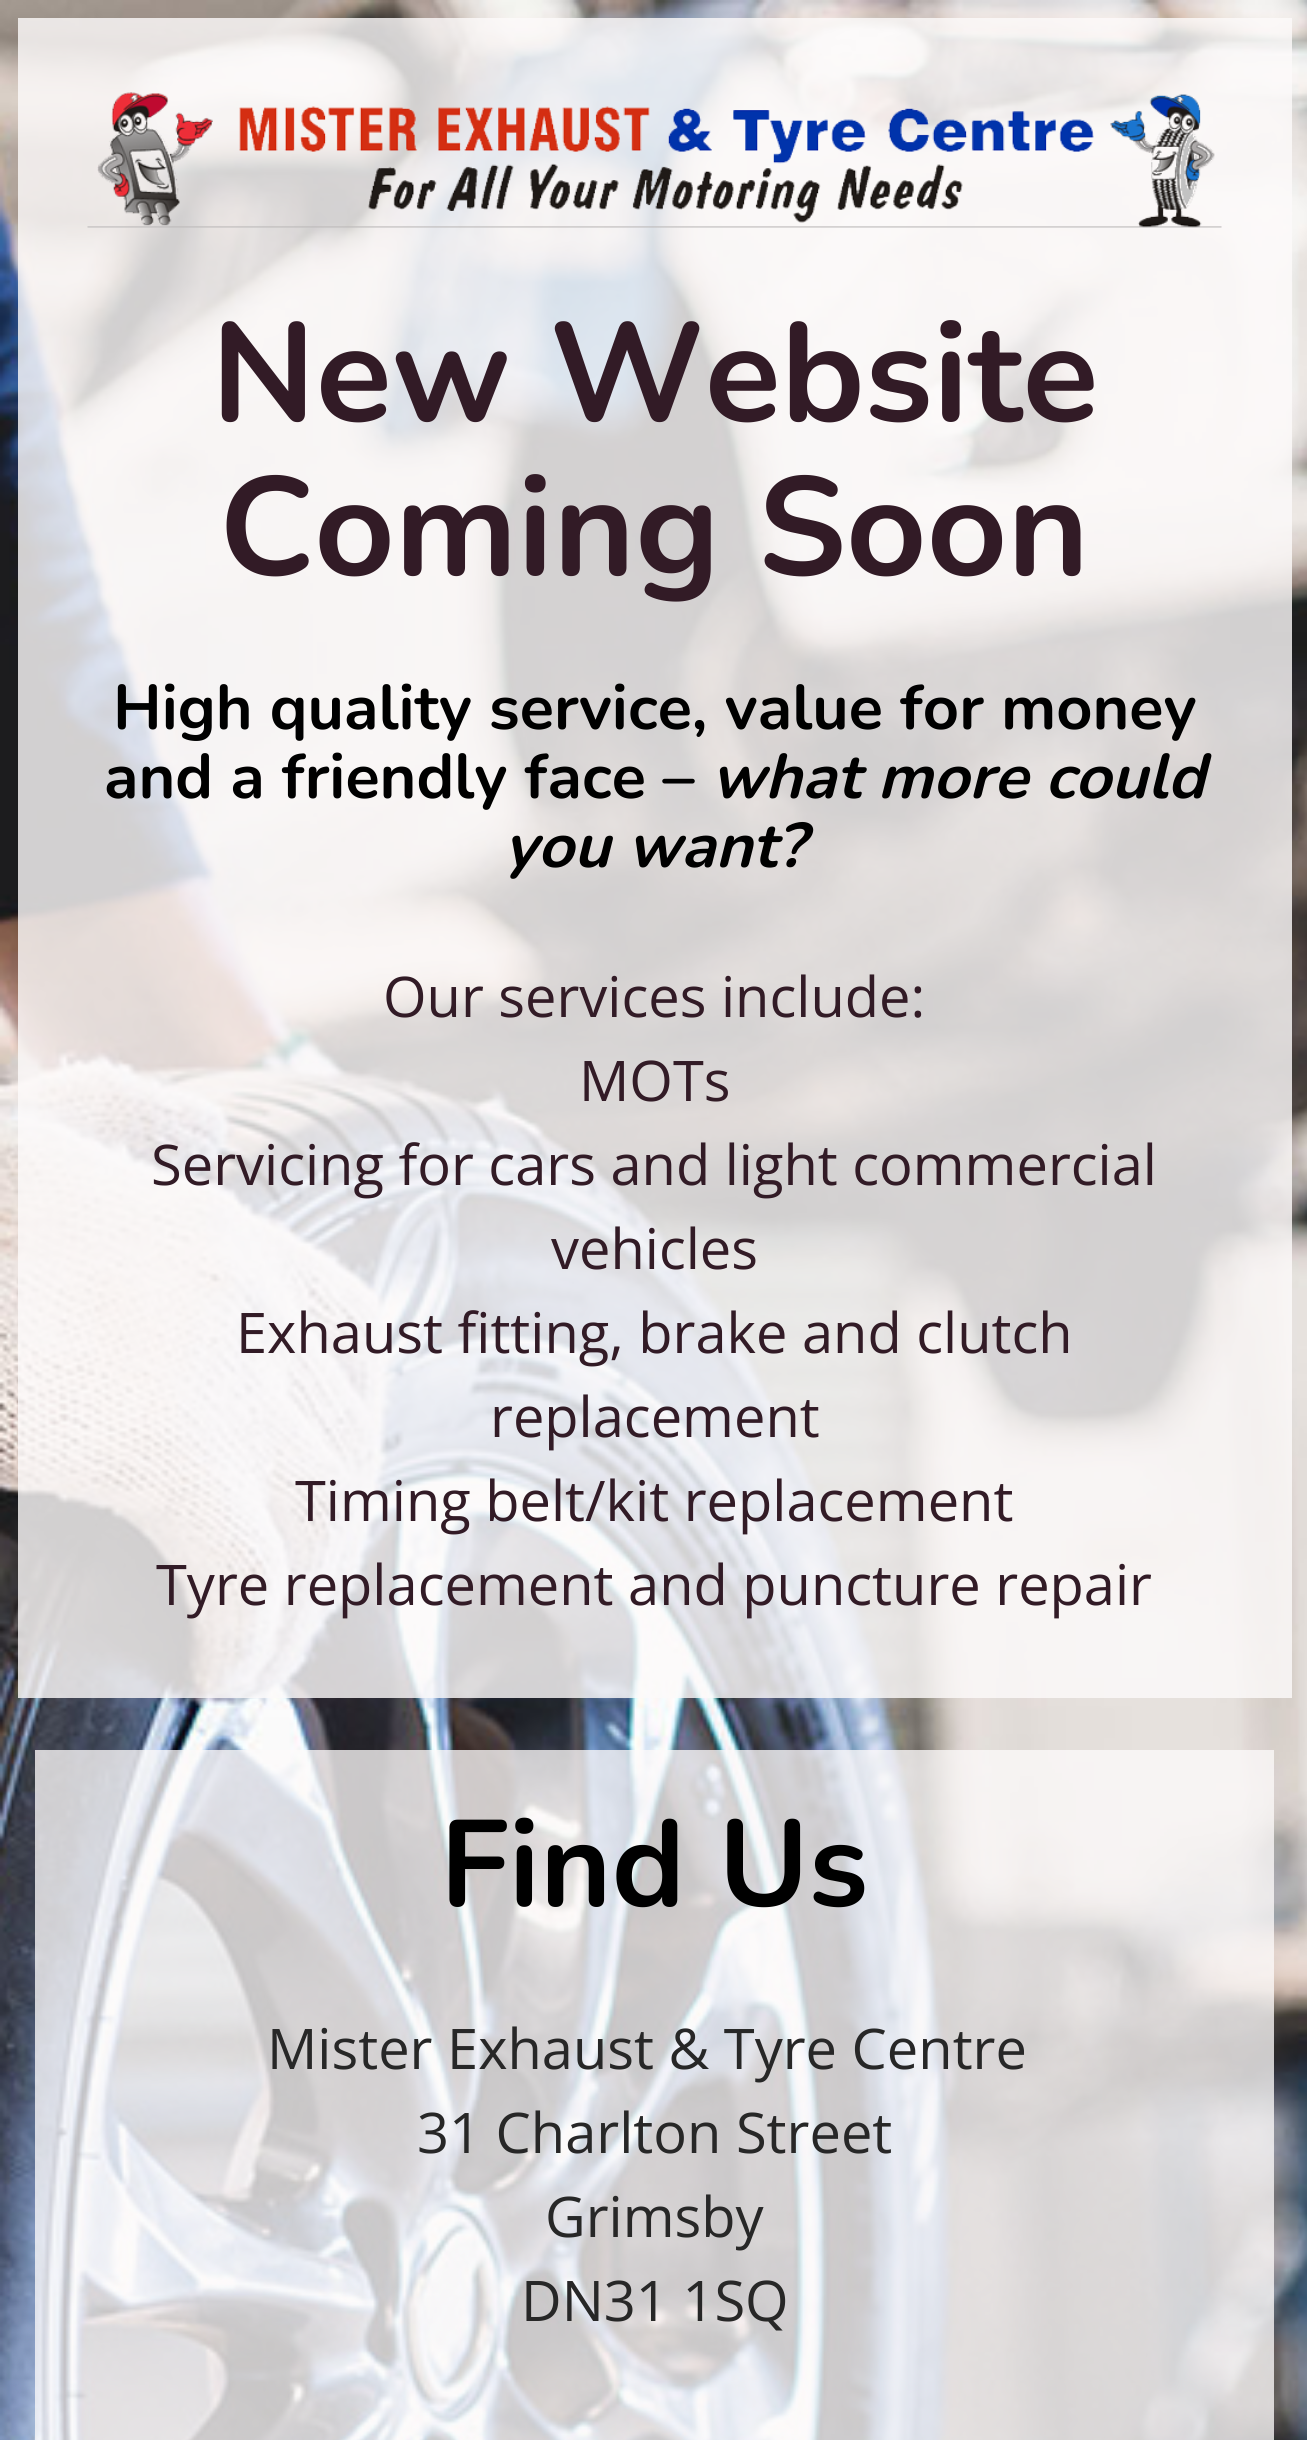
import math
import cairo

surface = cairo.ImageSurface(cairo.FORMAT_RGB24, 1307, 2440)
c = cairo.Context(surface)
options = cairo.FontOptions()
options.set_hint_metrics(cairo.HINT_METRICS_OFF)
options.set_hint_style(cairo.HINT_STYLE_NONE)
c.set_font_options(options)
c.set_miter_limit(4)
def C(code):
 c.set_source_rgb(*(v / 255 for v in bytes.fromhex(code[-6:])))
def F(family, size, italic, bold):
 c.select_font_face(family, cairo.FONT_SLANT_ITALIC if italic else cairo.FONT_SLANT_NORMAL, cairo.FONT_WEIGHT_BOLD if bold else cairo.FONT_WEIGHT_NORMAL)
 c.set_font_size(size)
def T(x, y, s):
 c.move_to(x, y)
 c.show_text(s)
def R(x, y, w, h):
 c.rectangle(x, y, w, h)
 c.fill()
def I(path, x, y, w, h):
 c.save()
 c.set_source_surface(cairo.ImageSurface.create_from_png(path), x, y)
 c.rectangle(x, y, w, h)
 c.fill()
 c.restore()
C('ffffff')
c.paint()
I('1.png',0,0,1307,2440)
c.set_source_rgba(0.992,0.98,0.98,0.81)
R(18,18,1274,1680)
I('2.png',87,92,1135,136)
F('Nunito ExtraLight',140,0,0)
C('321b26')
T(211,421,'New Website')
T(219,575,'Coming Soon')
F('Nunito ExtraLight',63,0,0)
C('000000')
T(113,729,'High quality service, value for money')
T(104,798,'and a friendly face –')
F('Nunito ExtraLight',63,1,0)
T(711,798,'what more could')
T(504,867,'you want?')
F('Open Sans',56,0,0)
C('321b26')
T(383,1017,'Our services include:')
T(579,1101,'MOTs')
T(151,1185,'Servicing for cars and light commercial')
T(551,1269,'vehicles')
T(236,1353,'Exhaust fitting, brake and clutch')
T(490,1437,'replacement')
T(295,1521,'Timing belt/kit replacement')
T(156,1605,'Tyre replacement and puncture repair')
c.set_source_rgba(0.992,0.98,0.98,0.77)
R(35,1750,1239,644)
F('Nunito ExtraLight',122.5,0,0)
C('000000')
T(440,1906,'Find Us')
F('Open Sans',56,0,0)
C('272727')
T(267,2069,'Mister Exhaust & Tyre Centre')
T(417,2153,'31 Charlton Street')
T(545,2237,'Grimsby')
T(521,2321,'DN31 1SQ')
c.set_source_rgba(0.992,0.98,0.98,0.77)
R(35,2394,1239,46)
surface.write_to_png('o.png')
